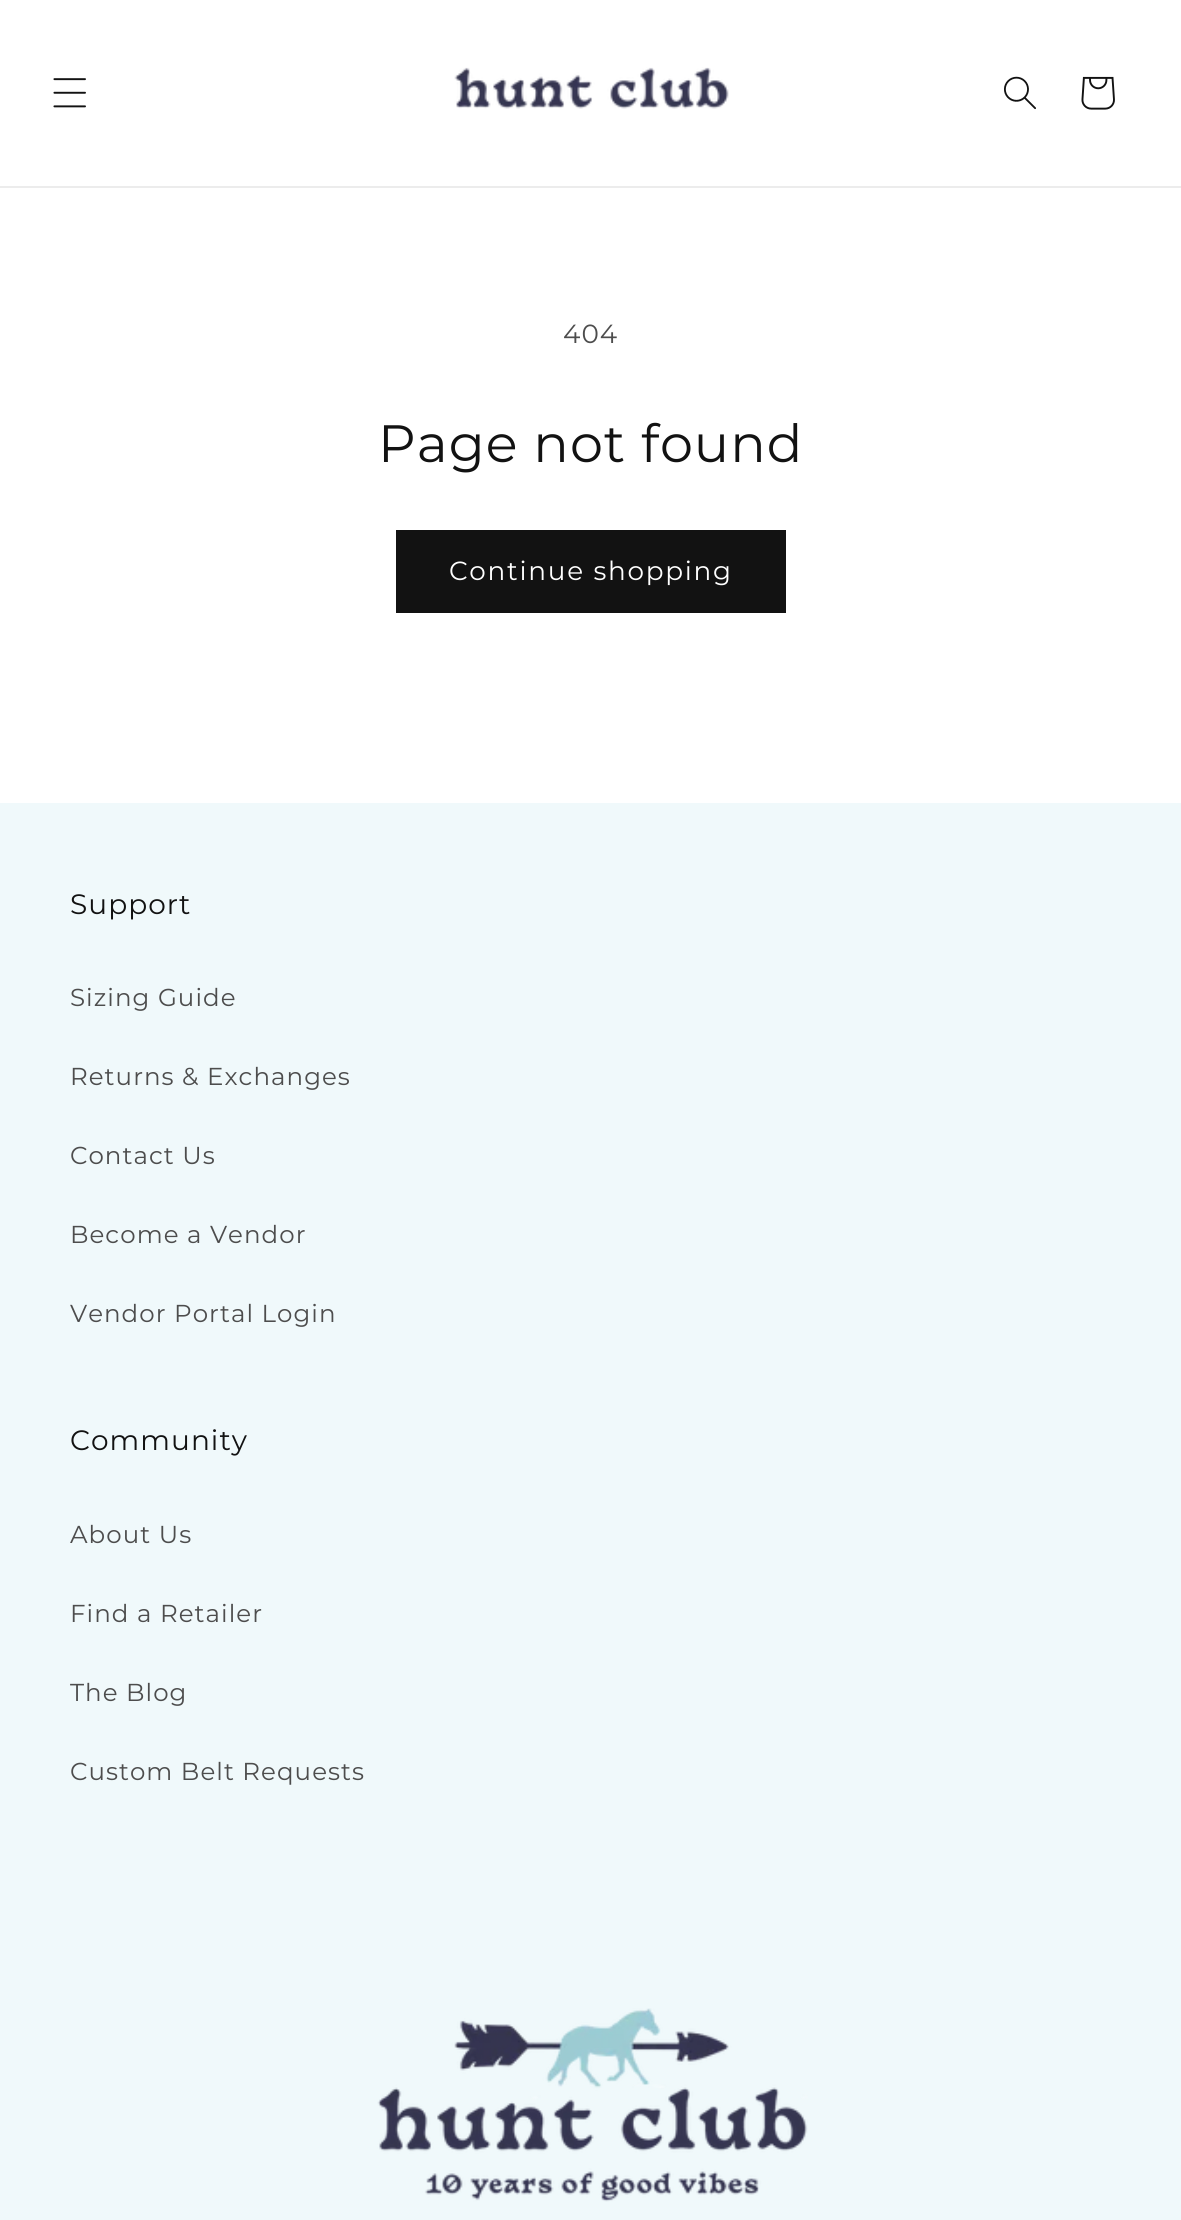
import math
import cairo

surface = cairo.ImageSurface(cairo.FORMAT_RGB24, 1181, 2220)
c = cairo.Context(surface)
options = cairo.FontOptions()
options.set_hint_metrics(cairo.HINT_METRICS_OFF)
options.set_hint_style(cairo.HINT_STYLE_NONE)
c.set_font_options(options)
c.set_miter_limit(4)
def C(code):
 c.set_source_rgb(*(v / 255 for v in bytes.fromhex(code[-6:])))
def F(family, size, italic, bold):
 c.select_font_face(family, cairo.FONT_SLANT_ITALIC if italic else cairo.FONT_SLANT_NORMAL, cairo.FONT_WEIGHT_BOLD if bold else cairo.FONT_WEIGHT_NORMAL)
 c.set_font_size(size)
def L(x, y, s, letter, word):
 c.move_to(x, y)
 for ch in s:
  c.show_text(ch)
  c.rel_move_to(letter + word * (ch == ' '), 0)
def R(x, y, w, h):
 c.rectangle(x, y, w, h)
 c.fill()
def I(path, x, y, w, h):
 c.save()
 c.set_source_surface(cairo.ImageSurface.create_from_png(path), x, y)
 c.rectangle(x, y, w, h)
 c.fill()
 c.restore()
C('ffffff')
c.paint()
C('ececec')
R(0,186,1181,2)
I('1.png',53,78,33,30)
I('2.png',454,67,275,42)
I('3.png',1004,76,32,34)
I('4.png',1081,76,34,34)
F('Montserrat',26.25,0,0)
C('4d4d4d')
L(563,343,'404',1.05,0)
F('Montserrat',52.5,0,0)
C('121212')
L(378,462,'Page not found',1.05,0)
R(396,530,390,83)
F('Montserrat',26.25,0,0)
C('ffffff')
L(449,580,'Continue shopping',1.75,0)
C('f0f9fb')
R(0,803,1181,1417)
F('Montserrat',28,0,0)
C('121212')
L(70,914,'Support',1.05,0)
F('Montserrat',24.5,0,0)
C('4d4d4d')
L(70,1006,'Sizing Guide',1.05,0)
L(70,1085,'Returns & Exchanges',1.05,0)
L(70,1164,'Contact Us',1.05,0)
L(70,1243,'Become a Vendor',1.05,0)
L(70,1322,'Vendor Portal Login',1.05,0)
F('Montserrat',28,0,0)
C('121212')
L(70,1450,'Community',1.05,0)
F('Montserrat',24.5,0,0)
C('4d4d4d')
L(70,1543,'About Us',1.05,0)
L(70,1622,'Find a Retailer',1.05,0)
L(70,1701,'The Blog',1.05,0)
L(70,1780,'Custom Belt Requests',1.05,0)
I('5.png',377,2008,431,194)
surface.write_to_png('o.png')
